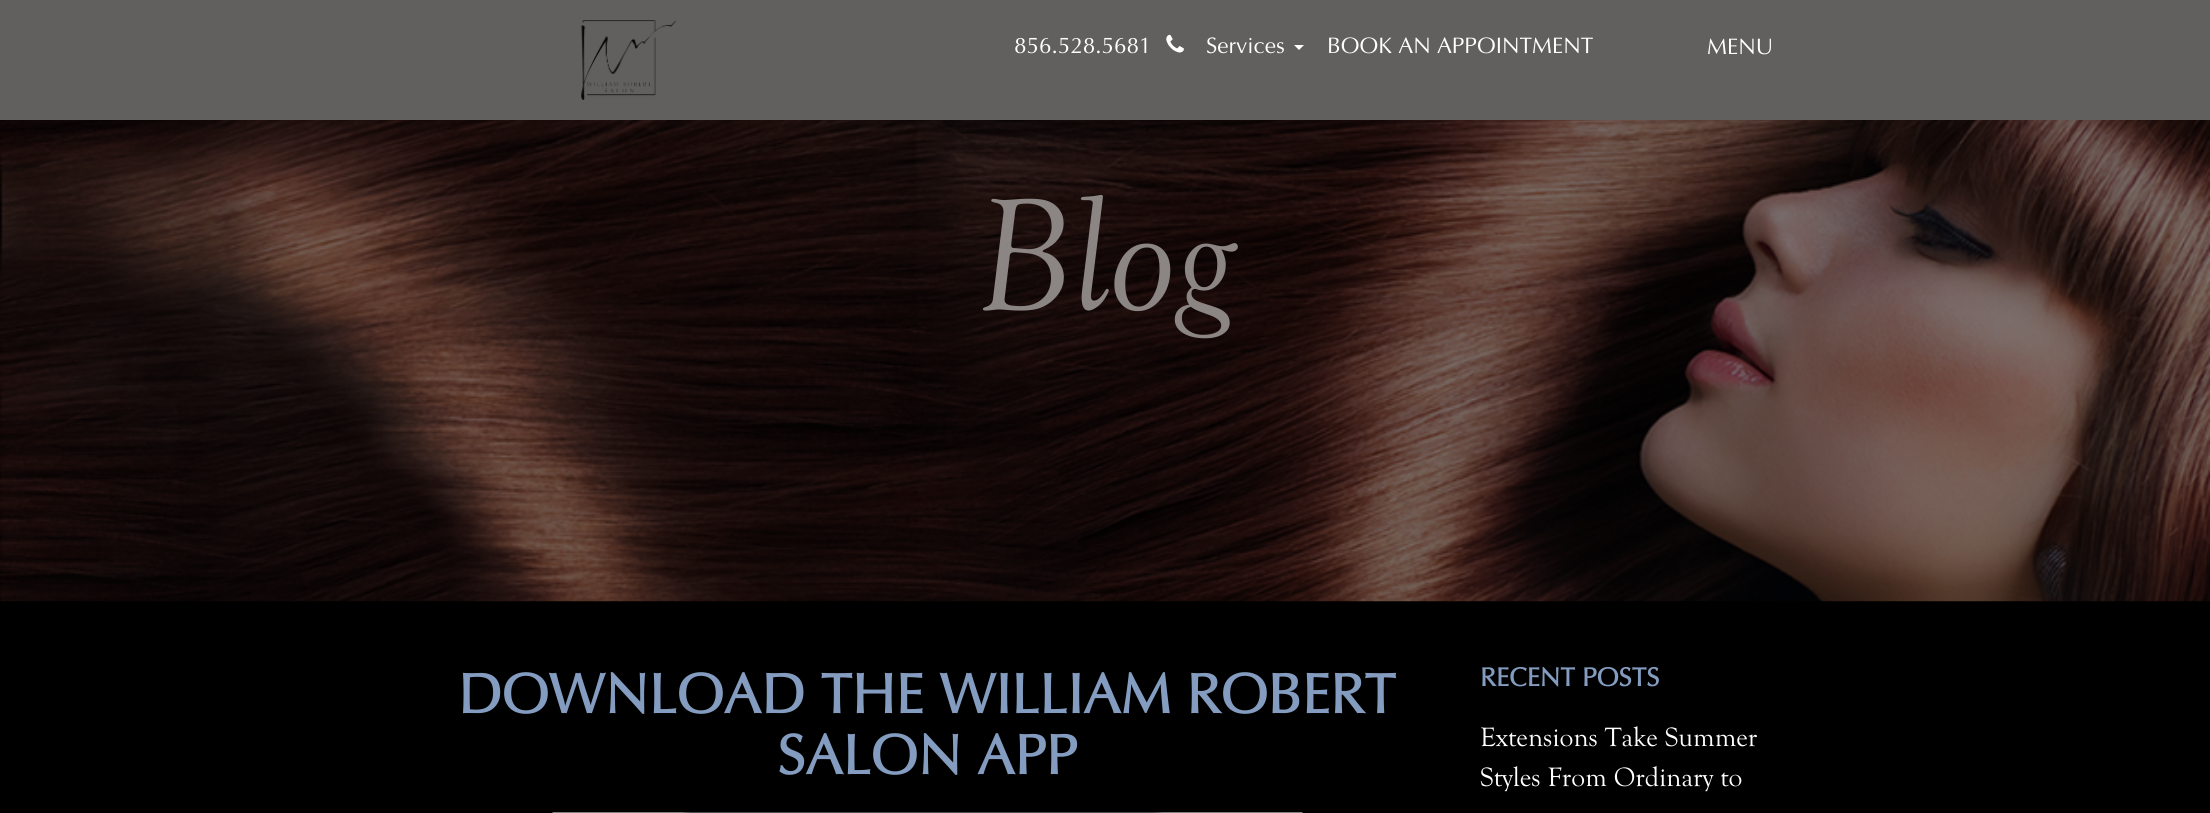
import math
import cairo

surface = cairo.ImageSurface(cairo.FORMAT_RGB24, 2210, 813)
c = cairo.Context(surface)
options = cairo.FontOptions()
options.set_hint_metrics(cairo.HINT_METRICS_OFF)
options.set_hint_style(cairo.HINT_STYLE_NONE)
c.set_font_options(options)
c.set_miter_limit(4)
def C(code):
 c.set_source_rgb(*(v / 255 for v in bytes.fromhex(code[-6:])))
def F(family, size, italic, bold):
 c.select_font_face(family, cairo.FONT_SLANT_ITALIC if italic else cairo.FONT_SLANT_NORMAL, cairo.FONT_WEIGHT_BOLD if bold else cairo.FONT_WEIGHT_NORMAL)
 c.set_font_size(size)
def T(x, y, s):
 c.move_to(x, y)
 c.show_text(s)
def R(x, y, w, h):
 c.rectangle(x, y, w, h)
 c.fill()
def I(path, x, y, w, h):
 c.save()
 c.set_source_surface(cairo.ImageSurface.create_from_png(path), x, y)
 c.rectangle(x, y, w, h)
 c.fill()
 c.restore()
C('000000')
c.paint()
C('61605f')
R(0,0,2210,120)
I('1.png',581,20,96,80)
F('Optima',22.5,0,0)
C('ffffff')
T(1014,53,'856.528.5681')
I('2.png',1166,34,18,19)
T(1206,53,'Services')
c.new_path()
c.move_to(1294,45)
c.line_to(1304,45)
c.line_to(1299,50)
c.close_path()
c.fill()
T(1327,53,'BOOK AN APPOINTMENT')
T(1707,54,'MENU')
I('3.png',0,120,2210,482)
F('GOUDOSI',166,1,0)
C('8b8584')
T(975,310,'Blog')
F('Optima',56.25,0,1)
C('839cbf')
T(458,713,'DOWNLOAD THE WILLIAM ROBERT')
T(777,774,'SALON APP')
I('4.png',552,812,751,1)
F('Optima',26.25,0,1)
T(1480,686,'RECENT POSTS')
F('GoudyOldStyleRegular',27.5,0,0)
C('ffffff')
T(1480,746,'Extensions Take Summer')
T(1480,786,'Styles From Ordinary to')
surface.write_to_png('o.png')
